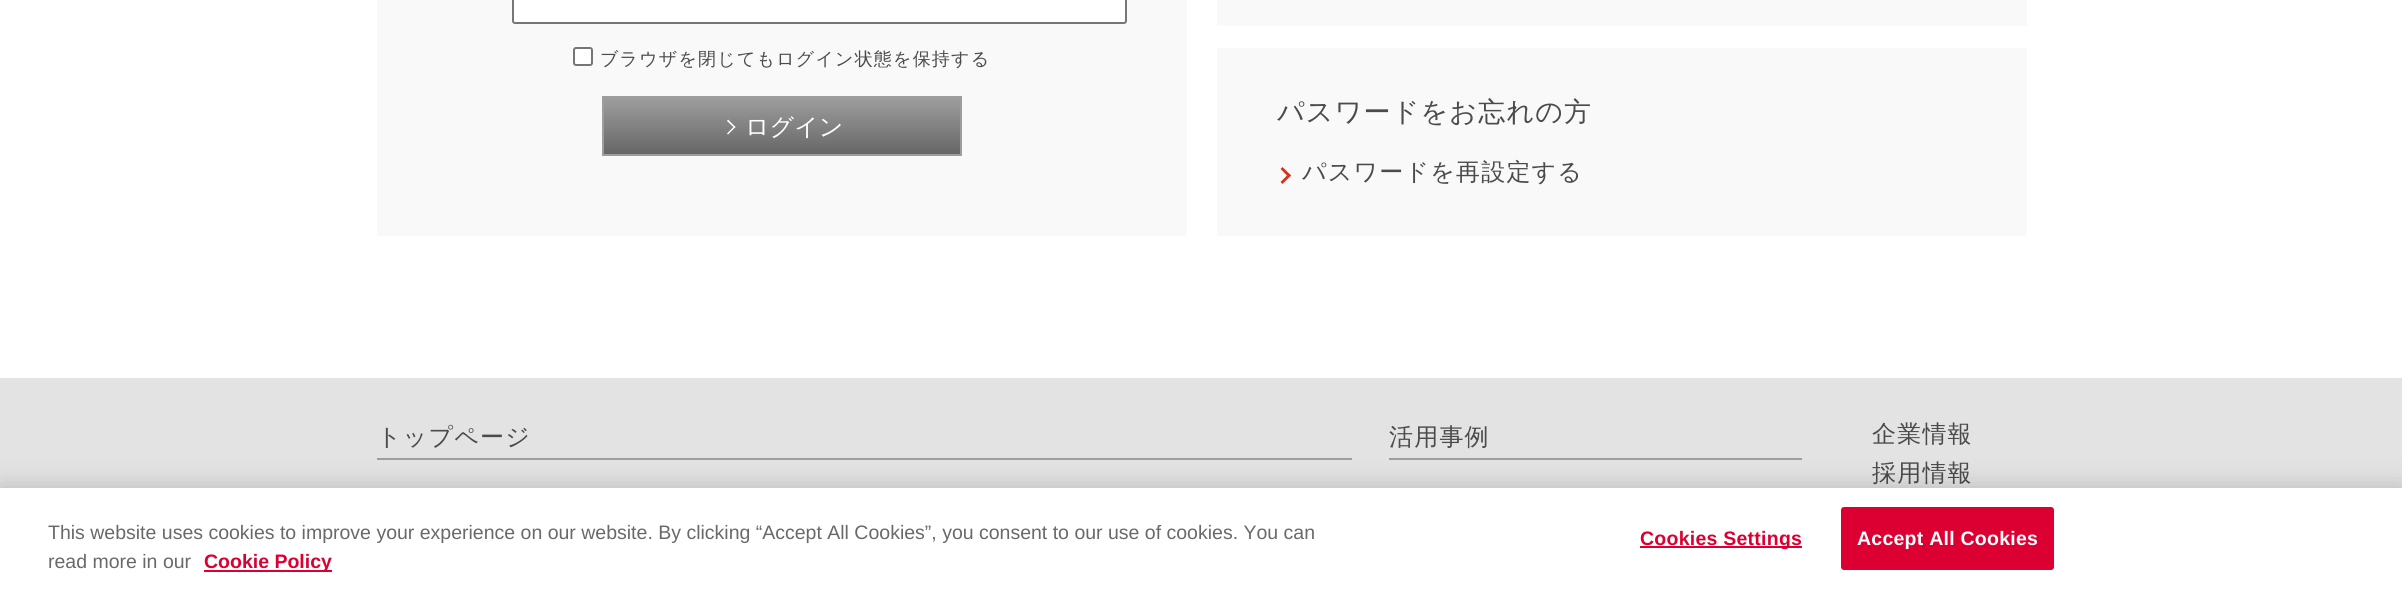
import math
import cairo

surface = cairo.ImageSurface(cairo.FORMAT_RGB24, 2402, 593)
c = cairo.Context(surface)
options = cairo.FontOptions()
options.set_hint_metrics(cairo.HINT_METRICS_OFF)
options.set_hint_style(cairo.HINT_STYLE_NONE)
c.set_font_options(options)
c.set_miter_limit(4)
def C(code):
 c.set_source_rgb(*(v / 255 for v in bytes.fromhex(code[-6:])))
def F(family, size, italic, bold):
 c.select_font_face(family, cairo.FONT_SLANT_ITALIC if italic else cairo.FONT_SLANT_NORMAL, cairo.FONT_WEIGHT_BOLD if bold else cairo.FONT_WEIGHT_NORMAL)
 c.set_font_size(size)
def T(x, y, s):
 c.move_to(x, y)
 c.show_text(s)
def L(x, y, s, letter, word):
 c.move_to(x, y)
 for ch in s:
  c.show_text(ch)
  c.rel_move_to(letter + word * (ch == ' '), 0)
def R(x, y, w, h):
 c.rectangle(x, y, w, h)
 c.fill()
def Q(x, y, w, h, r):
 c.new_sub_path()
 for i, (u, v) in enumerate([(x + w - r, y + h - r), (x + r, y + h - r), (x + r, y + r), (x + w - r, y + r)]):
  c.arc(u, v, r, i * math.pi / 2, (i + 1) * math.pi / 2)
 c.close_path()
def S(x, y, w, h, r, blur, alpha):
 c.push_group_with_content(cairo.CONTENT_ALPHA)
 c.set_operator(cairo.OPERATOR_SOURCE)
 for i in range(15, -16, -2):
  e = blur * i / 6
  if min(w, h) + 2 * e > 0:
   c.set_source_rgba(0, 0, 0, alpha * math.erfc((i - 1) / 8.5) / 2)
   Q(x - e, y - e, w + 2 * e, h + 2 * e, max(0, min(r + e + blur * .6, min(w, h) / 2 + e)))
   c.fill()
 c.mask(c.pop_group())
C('ffffff')
c.paint()
C('f9f9f9')
R(377,0,810,236)
C('ffffff')
Q(513,-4,613,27,2)
c.fill_preserve()
C('767676')
c.stroke()
C('ffffff')
Q(574,48,18,17,2)
c.fill_preserve()
C('767676')
c.stroke()
F('WenQuanYi Zen Hei Medium',18,0,0)
C('4b4b4b')
L(600,65,'ブラウザを閉じてもログイン状態を保持する',1.2,0)
gradient = cairo.LinearGradient(782,97,782,155)
gradient.add_color_stop_rgba(0,0.62,0.62,0.62,1)
gradient.add_color_stop_rgba(1,0.4,0.4,0.4,1)
c.set_source(gradient)
R(604,98,356,56)
c.rectangle(603,97,358,58)
C('9e9e9e')
c.stroke()
C('ffffff')
c.new_path()
c.move_to(728,119.5)
c.line_to(735.5,127)
c.line_to(734.5,128)
c.line_to(727,121)
c.close_path()
c.fill()
c.new_path()
c.move_to(734.5,126)
c.line_to(735.5,127)
c.line_to(728,134.5)
c.line_to(727,133.5)
c.close_path()
c.fill()
F('WenQuanYi Zen Hei Medium',24,0,0)
T(745,135,'ログイン')
C('f9f9f9')
R(1217,0,810,26)
R(1217,48,810,188)
F('WenQuanYi Zen Hei Medium',27,0,0)
C('4b4b4b')
L(1277,121,'パスワードをお忘れの方',1.2,0)
C('dd2e1e')
c.new_path()
c.move_to(1282.5,167)
c.line_to(1291,175.5)
c.line_to(1289,177.5)
c.line_to(1280.5,169)
c.close_path()
c.fill()
c.new_path()
c.move_to(1289,173.5)
c.line_to(1291,175.5)
c.line_to(1282.5,184)
c.line_to(1280.5,182)
c.close_path()
c.fill()
F('WenQuanYi Zen Hei Medium',24,0,0)
C('4b4b4b')
L(1302,180,'パスワードを再設定する',1.2,0)
C('e3e3e3')
R(0,378,2402,110)
C('9e9e9e')
R(377,458,975,2)
C('4b4b4b')
L(377,445,'トップページ',1.2,0)
C('9e9e9e')
R(1389,458,413,2)
C('4b4b4b')
L(1389,445,'活用事例',1.2,0)
L(1872,442,'企業情報',1.2,0)
L(1872,481,'採用情報',1.2,0)
C('000000')
S(0,488,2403,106,0,13.5,.2)
C('ffffff')
R(0,488,2402,105)
F('Liberation Sans',19.5,0,0)
C('696969')
T(48,539,'This website uses cookies to improve your experience on our website. By clicking “Accept All Cookies”, you consent to our use of cookies. You can')
T(48,568,'read more in our')
C('dc0032')
R(204,570,128,2)
F('Liberation Sans',19.5,0,1)
T(204,568,'Cookie Policy')
R(1640,546,162,2)
L(1640,545,'Cookies Settings',.25,0)
Q(1842,508,211,61,2)
c.fill_preserve()
c.stroke()
C('ffffff')
L(1857,545,'Accept All Cookies',.25,0)
surface.write_to_png('o.png')
